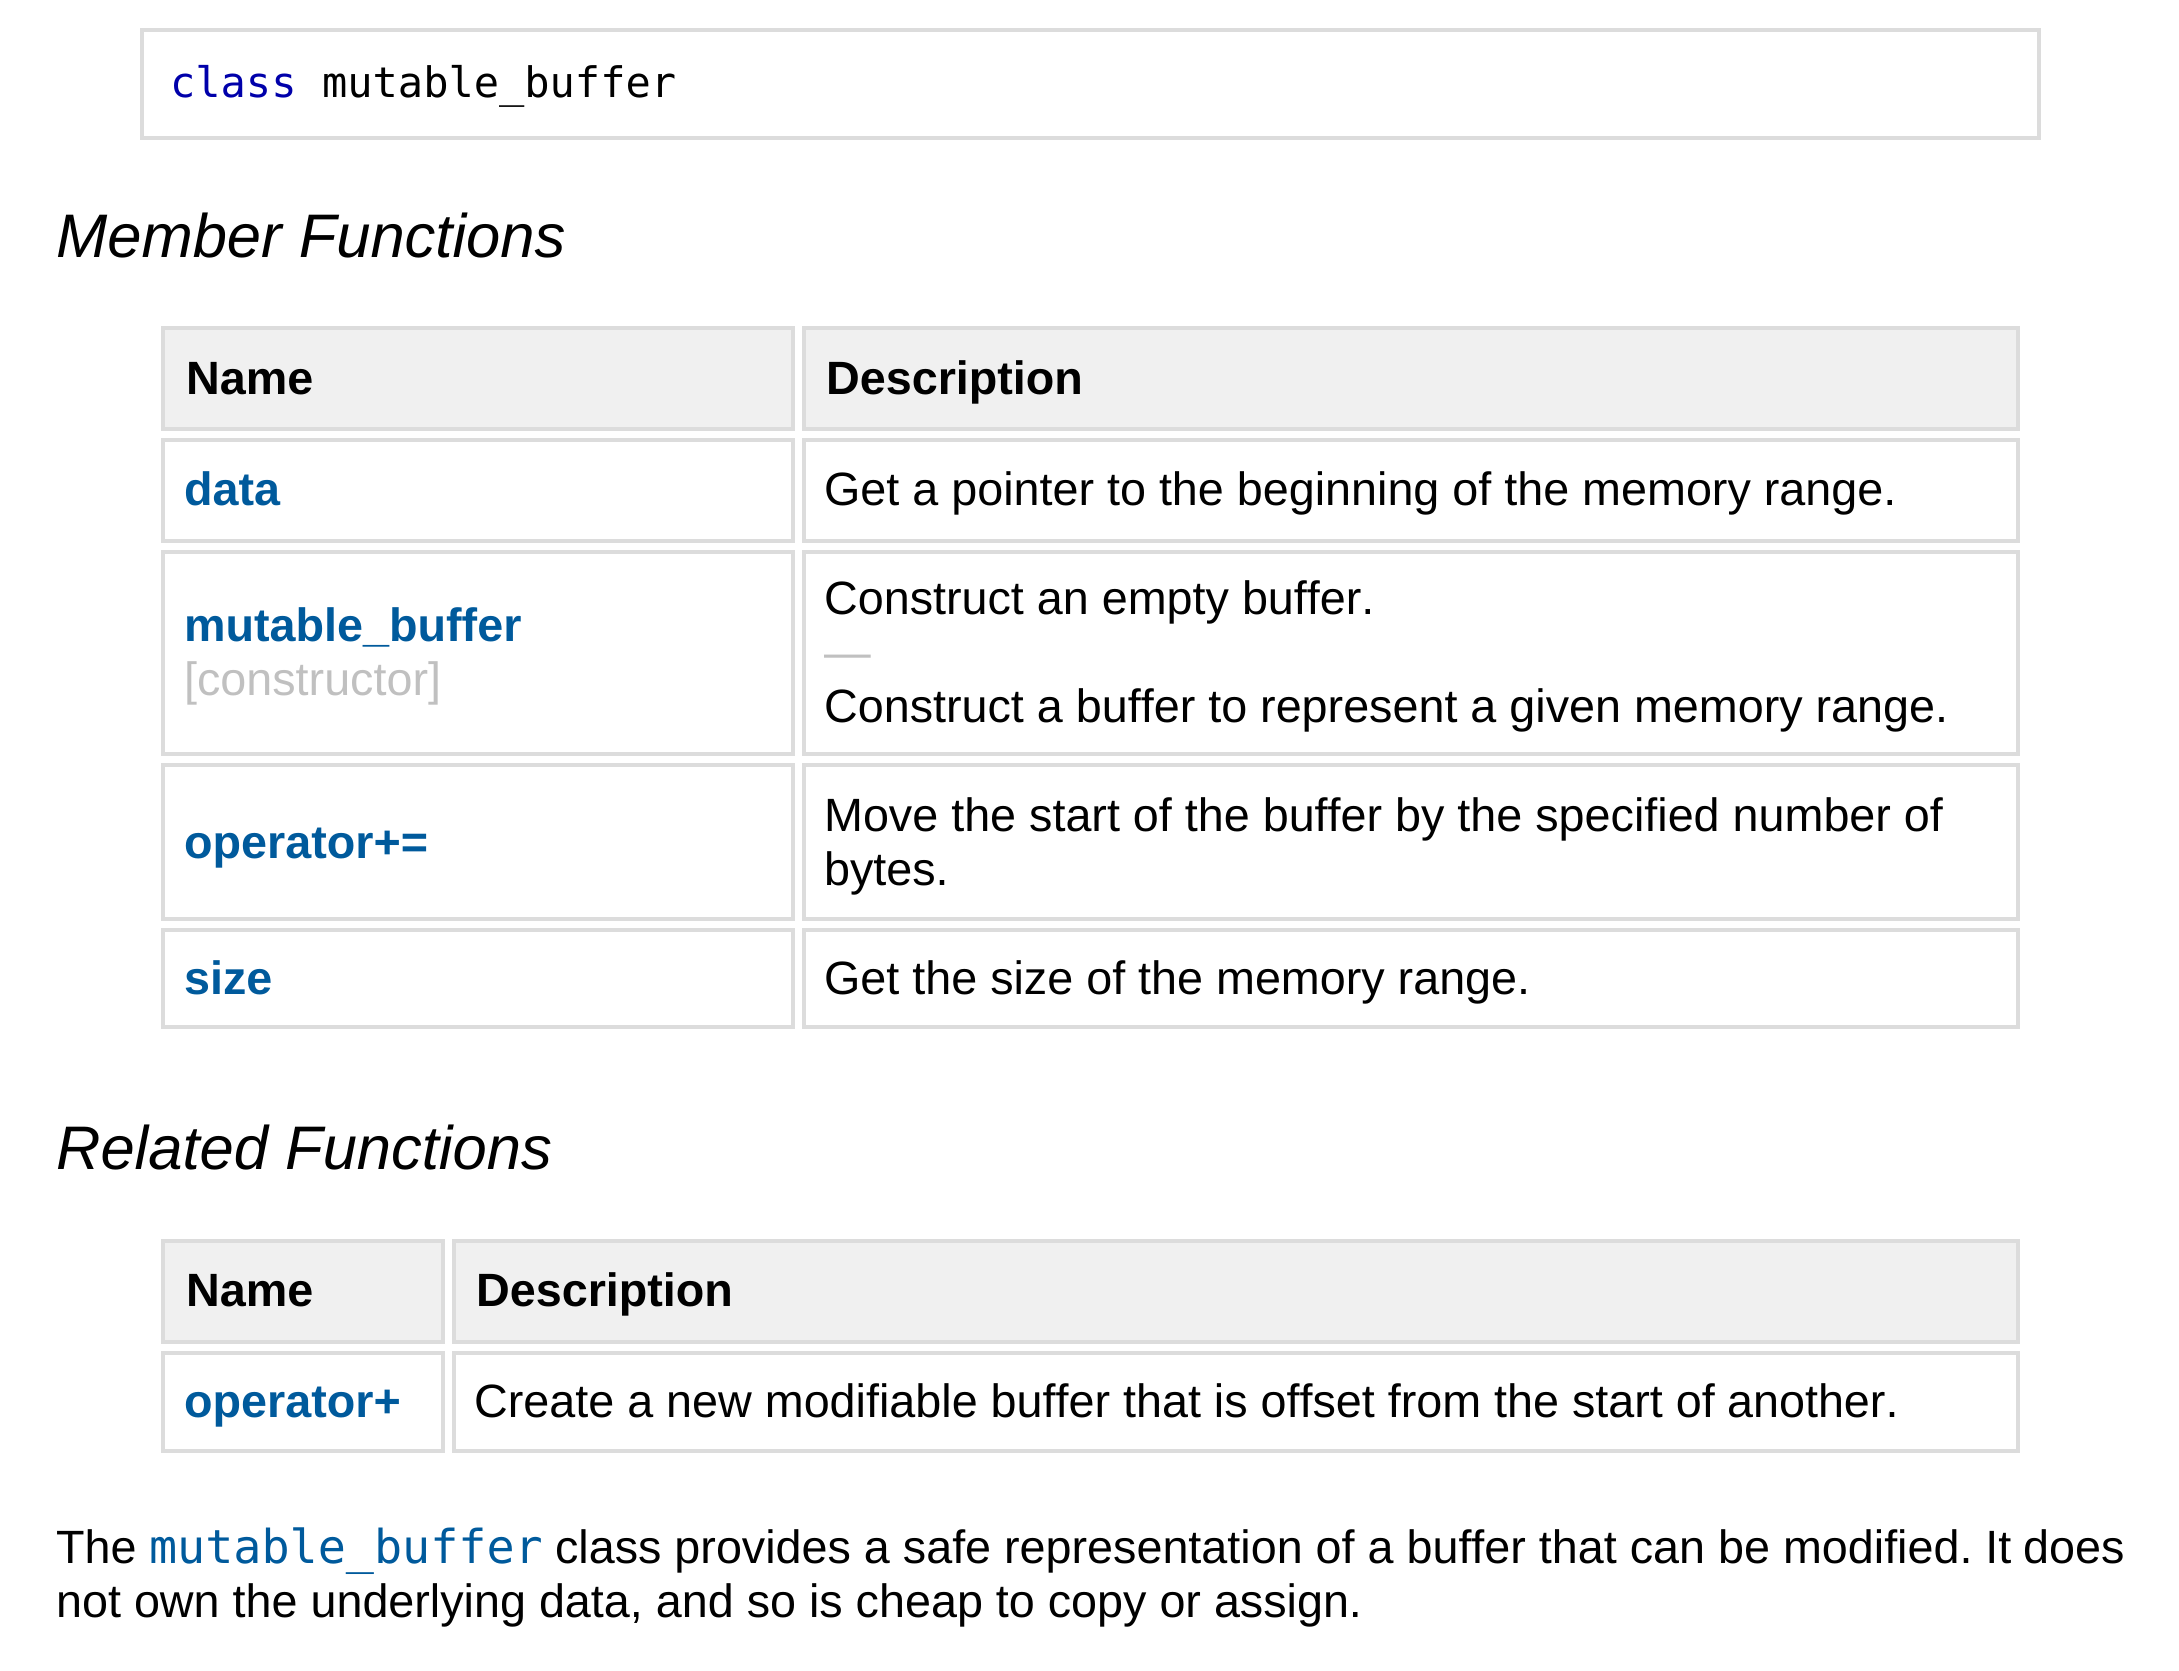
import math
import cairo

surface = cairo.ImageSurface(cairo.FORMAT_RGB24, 2179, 1671)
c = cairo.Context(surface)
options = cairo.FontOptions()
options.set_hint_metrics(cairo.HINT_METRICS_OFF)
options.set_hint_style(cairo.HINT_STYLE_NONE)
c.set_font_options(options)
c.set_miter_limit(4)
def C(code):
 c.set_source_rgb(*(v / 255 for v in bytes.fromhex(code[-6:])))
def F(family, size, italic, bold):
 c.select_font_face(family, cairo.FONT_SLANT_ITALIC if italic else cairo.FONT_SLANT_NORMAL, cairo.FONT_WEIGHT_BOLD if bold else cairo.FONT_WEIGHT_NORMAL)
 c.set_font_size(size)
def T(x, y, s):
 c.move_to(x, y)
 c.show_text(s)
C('ffffff')
c.paint()
c.rectangle(142,30,1897,108)
C('dcdcdc')
c.set_line_width(4)
c.stroke()
F('DejaVu Sans Mono',42,0,0)
C('0000aa')
T(170,97,'class')
C('000000')
T(322,97,'mutable_buffer')
F('Liberation Sans',61.5,1,0)
T(56,257,'Member Functions')
C('f0f0f0')
c.rectangle(163,328,630,101)
c.fill_preserve()
C('dcdcdc')
c.stroke()
F('Liberation Sans',46.7,0,1)
C('000000')
T(186,394,'Name')
C('f0f0f0')
c.rectangle(804,328,1214,101)
c.fill_preserve()
C('dcdcdc')
c.stroke()
C('000000')
T(826,394,'Description')
c.rectangle(163,440,630,101)
C('dcdcdc')
c.stroke()
C('005a9c')
T(184,505,'data')
c.rectangle(804,440,1214,101)
C('dcdcdc')
c.stroke()
F('Liberation Sans',46.7,0,0)
C('000000')
T(824,505,'Get a pointer to the beginning of the memory range.')
c.rectangle(163,552,630,202)
C('dcdcdc')
c.stroke()
F('Liberation Sans',46.7,0,1)
C('005a9c')
T(184,641,'mutable_buffer')
F('Liberation Sans',46.7,0,0)
C('c0c0c0')
T(184,695,'[constructor]')
c.rectangle(804,552,1214,202)
C('dcdcdc')
c.stroke()
C('000000')
T(824,614,'Construct an empty buffer.')
C('c0c0c0')
T(824,668,'—')
C('000000')
T(824,722,'Construct a buffer to represent a given memory range.')
c.rectangle(163,765,630,154)
C('dcdcdc')
c.stroke()
F('Liberation Sans',46.7,0,1)
C('005a9c')
T(184,858,'operator+=')
c.rectangle(804,765,1214,154)
C('dcdcdc')
c.stroke()
F('Liberation Sans',46.7,0,0)
C('000000')
T(824,831,'Move the start of the buffer by the specified number of')
T(824,885,'bytes.')
c.rectangle(163,930,630,97)
C('dcdcdc')
c.stroke()
F('Liberation Sans',46.7,0,1)
C('005a9c')
T(184,994,'size')
c.rectangle(804,930,1214,97)
C('dcdcdc')
c.stroke()
F('Liberation Sans',46.7,0,0)
C('000000')
T(824,994,'Get the size of the memory range.')
F('Liberation Sans',61.5,1,0)
T(56,1169,'Related Functions')
C('f0f0f0')
c.rectangle(163,1241,280,101)
c.fill_preserve()
C('dcdcdc')
c.stroke()
F('Liberation Sans',46.7,0,1)
C('000000')
T(186,1306,'Name')
C('f0f0f0')
c.rectangle(454,1241,1564,101)
c.fill_preserve()
C('dcdcdc')
c.stroke()
C('000000')
T(476,1306,'Description')
c.rectangle(163,1353,280,98)
C('dcdcdc')
c.stroke()
C('005a9c')
T(184,1417,'operator+')
c.rectangle(454,1353,1564,98)
C('dcdcdc')
c.stroke()
F('Liberation Sans',46.7,0,0)
C('000000')
T(474,1417,'Create a new modifiable buffer that is offset from the start of')
T(1727,1417,'another.')
T(56,1563,'The')
F('DejaVu Sans Mono',46.7,0,0)
C('005a9c')
T(149,1563,'mutable_buffer')
F('Liberation Sans',46.7,0,0)
C('000000')
T(555,1563,'class provides a safe representation of a buffer that can be modified. It')
T(2023,1563,'does')
T(56,1617,'not own the underlying data, and so is cheap to copy or assign.')
surface.write_to_png('o.png')
